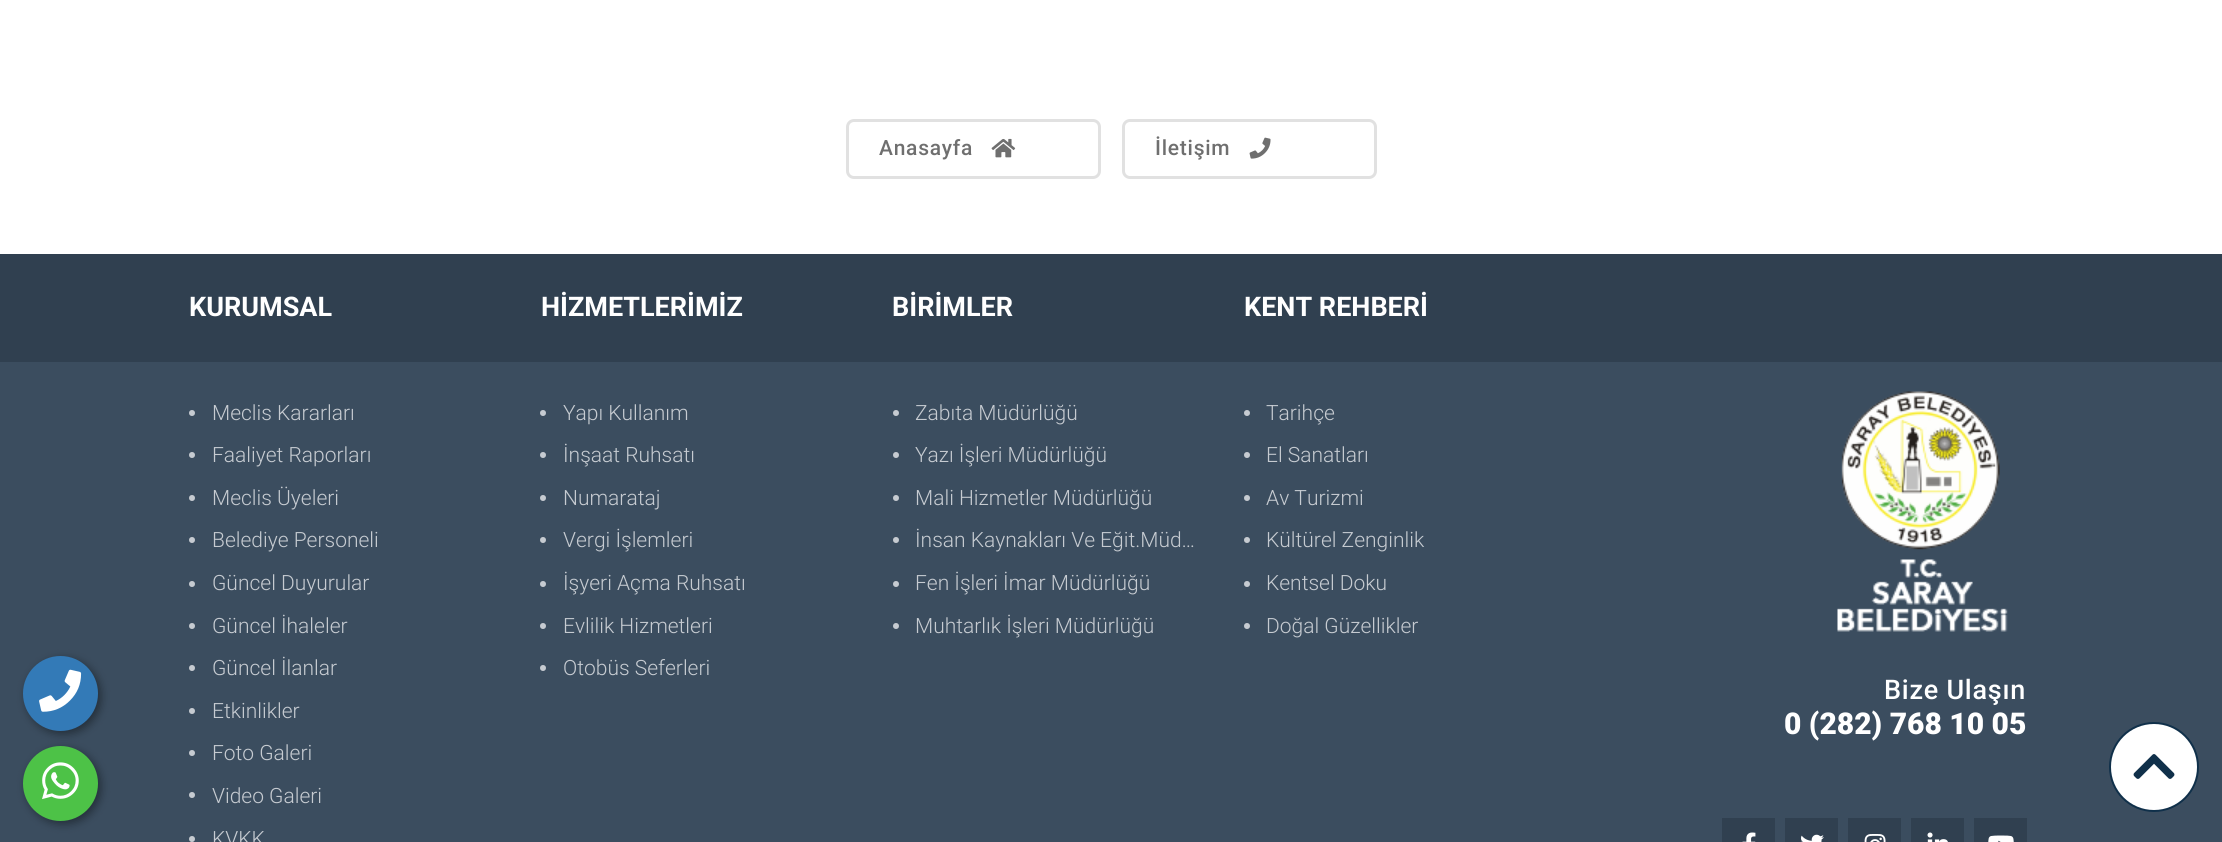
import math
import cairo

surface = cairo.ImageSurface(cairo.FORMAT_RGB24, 2222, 842)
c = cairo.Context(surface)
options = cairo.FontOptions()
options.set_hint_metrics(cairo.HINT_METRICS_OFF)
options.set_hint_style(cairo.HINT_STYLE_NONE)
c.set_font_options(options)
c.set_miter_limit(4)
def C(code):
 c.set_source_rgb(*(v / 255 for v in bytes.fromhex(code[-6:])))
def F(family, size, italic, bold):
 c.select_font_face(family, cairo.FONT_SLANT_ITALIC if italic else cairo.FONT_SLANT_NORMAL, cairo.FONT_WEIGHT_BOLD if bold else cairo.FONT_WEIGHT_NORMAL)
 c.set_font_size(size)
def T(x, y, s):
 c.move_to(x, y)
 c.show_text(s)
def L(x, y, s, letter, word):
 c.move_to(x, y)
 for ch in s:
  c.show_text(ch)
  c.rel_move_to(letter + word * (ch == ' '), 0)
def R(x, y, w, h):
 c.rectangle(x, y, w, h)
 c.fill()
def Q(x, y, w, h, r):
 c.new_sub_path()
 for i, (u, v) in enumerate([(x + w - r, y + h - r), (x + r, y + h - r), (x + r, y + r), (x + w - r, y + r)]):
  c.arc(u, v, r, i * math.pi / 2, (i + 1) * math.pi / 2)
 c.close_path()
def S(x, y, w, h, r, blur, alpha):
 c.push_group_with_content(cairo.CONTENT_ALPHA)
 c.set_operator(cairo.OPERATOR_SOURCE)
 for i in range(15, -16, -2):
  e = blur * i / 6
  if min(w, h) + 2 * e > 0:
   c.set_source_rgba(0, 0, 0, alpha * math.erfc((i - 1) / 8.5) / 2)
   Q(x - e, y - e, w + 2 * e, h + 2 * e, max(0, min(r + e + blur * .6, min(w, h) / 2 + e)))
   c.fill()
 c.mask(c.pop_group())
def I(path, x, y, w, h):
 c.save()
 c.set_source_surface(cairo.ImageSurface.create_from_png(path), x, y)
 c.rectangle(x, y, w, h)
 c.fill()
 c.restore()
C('ffffff')
c.paint()
C('3b4d5f')
R(0,362,2222,480)
C('000000')
S(26,659,75,75,37.5,4.5,.4)
C('337ab7')
c.arc(60.5,693.5,37.5,0,2 * math.pi)
c.fill()
I('1.png',39,669,43,43)
Q(847.5,120.5,252,57,6.5)
C('e1e1e1')
c.set_line_width(3)
c.stroke()
F('Roboto Medium',21,0,0)
C('6f6f6f')
L(879,155,'Anasayfa',.75,0)
I('2.png',991,138,25,20)
Q(1123.5,120.5,252,57,6.5)
C('e1e1e1')
c.stroke()
C('6f6f6f')
L(1155,155,'İletişim',.75,0)
I('3.png',1249,137,22,22)
C('304050')
R(0,254,2222,108)
F('Roboto',27,0,1)
C('ffffff')
T(189,316,'KURUMSAL')
C('c6cbd1')
c.new_path()
c.arc(192,413,3,0,2 * math.pi)
c.fill()
F('Roboto Light',21,0,0)
T(212,420,'Meclis Kararları')
c.new_path()
c.arc(192,455,3,0,2 * math.pi)
c.fill()
T(212,462,'Faaliyet Raporları')
c.new_path()
c.arc(192,498,3,0,2 * math.pi)
c.fill()
T(212,505,'Meclis Üyeleri')
c.new_path()
c.arc(192,540,3,0,2 * math.pi)
c.fill()
T(212,547,'Belediye Personeli')
c.new_path()
c.arc(192,584,3,0,2 * math.pi)
c.fill()
T(212,590,'Güncel Duyurular')
c.new_path()
c.arc(192,626,3,0,2 * math.pi)
c.fill()
T(212,633,'Güncel İhaleler')
c.new_path()
c.arc(192,668,3,0,2 * math.pi)
c.fill()
T(212,675,'Güncel İlanlar')
c.new_path()
c.arc(192,711,3,0,2 * math.pi)
c.fill()
T(212,718,'Etkinlikler')
c.new_path()
c.arc(192,753,3,0,2 * math.pi)
c.fill()
T(212,760,'Foto Galeri')
c.new_path()
c.arc(192,795,3,0,2 * math.pi)
c.fill()
T(212,803,'Video Galeri')
c.new_path()
c.arc(192,839,3,0,2 * math.pi)
c.fill()
T(212,846,'KVKK')
F('Roboto',27,0,1)
C('ffffff')
T(541,316,'HİZMETLERİMİZ')
C('c6cbd1')
c.new_path()
c.arc(543,413,3,0,2 * math.pi)
c.fill()
F('Roboto Light',21,0,0)
T(563,420,'Yapı Kullanım')
c.new_path()
c.arc(543,455,3,0,2 * math.pi)
c.fill()
T(563,462,'İnşaat Ruhsatı')
c.new_path()
c.arc(543,498,3,0,2 * math.pi)
c.fill()
T(563,505,'Numarataj')
c.new_path()
c.arc(543,540,3,0,2 * math.pi)
c.fill()
T(563,547,'Vergi İşlemleri')
c.new_path()
c.arc(543,584,3,0,2 * math.pi)
c.fill()
T(563,590,'İşyeri Açma Ruhsatı')
c.new_path()
c.arc(543,626,3,0,2 * math.pi)
c.fill()
T(563,633,'Evlilik Hizmetleri')
c.new_path()
c.arc(543,668,3,0,2 * math.pi)
c.fill()
T(563,675,'Otobüs Seferleri')
F('Roboto',27,0,1)
C('ffffff')
T(892,316,'BİRİMLER')
C('c6cbd1')
c.new_path()
c.arc(896,413,3,0,2 * math.pi)
c.fill()
F('Roboto Light',21,0,0)
T(915,420,'Zabıta Müdürlüğü')
c.new_path()
c.arc(896,455,3,0,2 * math.pi)
c.fill()
T(915,462,'Yazı İşleri Müdürlüğü')
c.new_path()
c.arc(896,498,3,0,2 * math.pi)
c.fill()
T(915,505,'Mali Hizmetler Müdürlüğü')
c.new_path()
c.arc(896,540,3,0,2 * math.pi)
c.fill()
T(915,547,'İnsan Kaynakları Ve Eğit.Müd…')
c.new_path()
c.arc(896,584,3,0,2 * math.pi)
c.fill()
T(915,590,'Fen İşleri İmar Müdürlüğü')
c.new_path()
c.arc(896,626,3,0,2 * math.pi)
c.fill()
T(915,633,'Muhtarlık İşleri Müdürlüğü')
F('Roboto',27,0,1)
C('ffffff')
T(1244,316,'KENT REHBERİ')
C('c6cbd1')
c.new_path()
c.arc(1247,413,3,0,2 * math.pi)
c.fill()
F('Roboto Light',21,0,0)
T(1266,420,'Tarihçe')
c.new_path()
c.arc(1247,455,3,0,2 * math.pi)
c.fill()
T(1266,462,'El Sanatları')
c.new_path()
c.arc(1247,498,3,0,2 * math.pi)
c.fill()
T(1266,505,'Av Turizmi')
c.new_path()
c.arc(1247,540,3,0,2 * math.pi)
c.fill()
T(1266,547,'Kültürel Zenginlik')
c.new_path()
c.arc(1247,584,3,0,2 * math.pi)
c.fill()
T(1266,590,'Kentsel Doku')
c.new_path()
c.arc(1247,626,3,0,2 * math.pi)
c.fill()
T(1266,633,'Doğal Güzellikler')
I('4.png',1837,391,171,241)
F('Roboto Medium',27,0,0)
C('ffffff')
L(1884,699,'Bize Ulaşın',.75,0)
F('Roboto Black',30,0,0)
T(1784,734,'0 (282) 768 10 05')
C('304050')
R(1722,818,53,24)
I('5.png',1742,832,14,10)
R(1785,818,53,24)
I('6.png',1801,834,23,8)
R(1848,818,53,24)
I('7.png',1864,834,22,8)
R(1911,818,53,24)
I('8.png',1927,832,21,10)
R(1974,818,53,24)
I('9.png',1988,835,26,7)
C('000000')
S(26,749,75,75,37.5,4.5,.4)
C('4dc247')
c.arc(60.5,783.5,37.5,0,2 * math.pi)
c.fill()
I('10.png',42,762,37,38)
C('ffffff')
c.arc(2154,767,44,0,2 * math.pi)
c.fill_preserve()
C('10304a')
c.set_line_width(2)
c.stroke()
I('11.png',2133,754,42,25)
surface.write_to_png('o.png')
